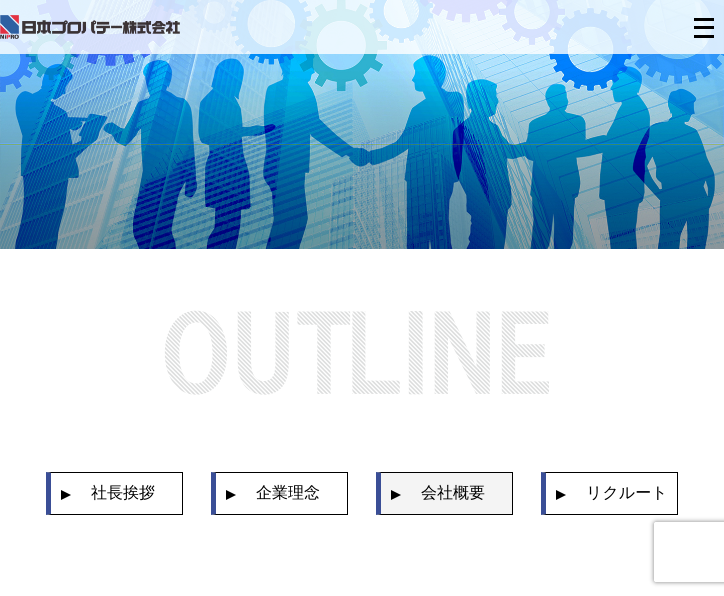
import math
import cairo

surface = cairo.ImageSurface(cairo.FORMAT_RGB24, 724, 596)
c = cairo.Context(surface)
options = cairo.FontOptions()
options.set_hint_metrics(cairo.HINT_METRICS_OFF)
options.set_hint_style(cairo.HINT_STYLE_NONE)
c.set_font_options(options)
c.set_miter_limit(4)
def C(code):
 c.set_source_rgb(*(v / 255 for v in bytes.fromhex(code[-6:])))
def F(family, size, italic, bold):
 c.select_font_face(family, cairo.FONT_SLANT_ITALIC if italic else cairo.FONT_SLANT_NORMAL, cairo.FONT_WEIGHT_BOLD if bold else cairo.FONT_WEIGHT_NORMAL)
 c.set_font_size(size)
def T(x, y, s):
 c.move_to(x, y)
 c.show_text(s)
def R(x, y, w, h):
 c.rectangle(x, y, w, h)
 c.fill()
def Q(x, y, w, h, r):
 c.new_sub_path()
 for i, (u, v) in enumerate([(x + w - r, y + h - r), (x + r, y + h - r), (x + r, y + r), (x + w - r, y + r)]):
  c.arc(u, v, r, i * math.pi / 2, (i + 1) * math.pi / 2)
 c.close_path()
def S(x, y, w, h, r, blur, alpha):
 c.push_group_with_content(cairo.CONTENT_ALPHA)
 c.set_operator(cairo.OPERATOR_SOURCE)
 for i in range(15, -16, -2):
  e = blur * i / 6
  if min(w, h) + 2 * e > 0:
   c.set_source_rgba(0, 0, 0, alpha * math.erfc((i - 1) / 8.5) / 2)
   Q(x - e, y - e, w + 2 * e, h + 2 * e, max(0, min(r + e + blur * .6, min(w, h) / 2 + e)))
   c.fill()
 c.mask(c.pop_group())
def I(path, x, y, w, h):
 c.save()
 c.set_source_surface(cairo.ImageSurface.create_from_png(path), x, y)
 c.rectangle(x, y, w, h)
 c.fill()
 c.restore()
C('ffffff')
c.paint()
I('2.png',0,0,724,249)
c.set_source_rgba(1,1,1,0.8)
R(0,0,724,54)
I('1.png',0,15,180,24)
C('000000')
R(694,18,20,3)
R(694,26,20,3)
R(694,35,20,3)
I('3.png',164,310,385,85)
c.new_path()
c.move_to(46,472)
c.line_to(183,472)
c.line_to(182,473)
c.line_to(51,473)
c.close_path()
c.fill()
R(182,472,1,43)
c.new_path()
c.move_to(183,515)
c.line_to(46,515)
c.line_to(51,514)
c.line_to(182,514)
c.close_path()
c.fill()
C('3a4e96')
c.new_path()
c.move_to(46,515)
c.line_to(46,472)
c.line_to(51,473)
c.line_to(51,514)
c.close_path()
c.fill()
C('000000')
c.new_path()
c.move_to(61,500)
c.line_to(61,490)
c.line_to(71,495)
c.close_path()
c.fill()
F('WenQuanYi Zen Hei Medium',16,0,0)
T(91,498,'社長挨拶')
c.new_path()
c.move_to(211,472)
c.line_to(348,472)
c.line_to(347,473)
c.line_to(216,473)
c.close_path()
c.fill()
R(347,472,1,43)
c.new_path()
c.move_to(348,515)
c.line_to(211,515)
c.line_to(216,514)
c.line_to(347,514)
c.close_path()
c.fill()
C('3a4e96')
c.new_path()
c.move_to(211,515)
c.line_to(211,472)
c.line_to(216,473)
c.line_to(216,514)
c.close_path()
c.fill()
C('000000')
c.new_path()
c.move_to(226,500)
c.line_to(226,490)
c.line_to(236,495)
c.close_path()
c.fill()
T(256,498,'企業理念')
C('f4f4f4')
R(381,473,131,41)
C('000000')
c.new_path()
c.move_to(376,472)
c.line_to(513,472)
c.line_to(512,473)
c.line_to(381,473)
c.close_path()
c.fill()
R(512,472,1,43)
c.new_path()
c.move_to(513,515)
c.line_to(376,515)
c.line_to(381,514)
c.line_to(512,514)
c.close_path()
c.fill()
C('3a4e96')
c.new_path()
c.move_to(376,515)
c.line_to(376,472)
c.line_to(381,473)
c.line_to(381,514)
c.close_path()
c.fill()
C('000000')
c.new_path()
c.move_to(391,500)
c.line_to(391,490)
c.line_to(401,495)
c.close_path()
c.fill()
T(421,498,'会社概要')
c.new_path()
c.move_to(541,472)
c.line_to(678,472)
c.line_to(677,473)
c.line_to(546,473)
c.close_path()
c.fill()
R(677,472,1,43)
c.new_path()
c.move_to(678,515)
c.line_to(541,515)
c.line_to(546,514)
c.line_to(677,514)
c.close_path()
c.fill()
C('3a4e96')
c.new_path()
c.move_to(541,515)
c.line_to(541,472)
c.line_to(546,473)
c.line_to(546,514)
c.close_path()
c.fill()
C('000000')
c.new_path()
c.move_to(556,500)
c.line_to(556,490)
c.line_to(566,495)
c.close_path()
c.fill()
T(586,498,'リクルート')
c.save()
c.set_fill_rule(cairo.FILL_RULE_EVEN_ODD)
c.new_path()
c.move_to(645,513)
c.line_to(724,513)
c.line_to(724,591)
c.line_to(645,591)
c.close_path()
c.move_to(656,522)
c.line_to(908,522)
c.curve_to(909,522,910,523,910,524)
c.line_to(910,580)
c.curve_to(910,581,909,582,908,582)
c.line_to(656,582)
c.curve_to(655,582,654,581,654,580)
c.line_to(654,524)
c.curve_to(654,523,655,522,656,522)
c.close_path()
c.clip()
C('808080')
S(654,522,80,60,2,2.5,1)
c.restore()
surface.write_to_png('o.png')
